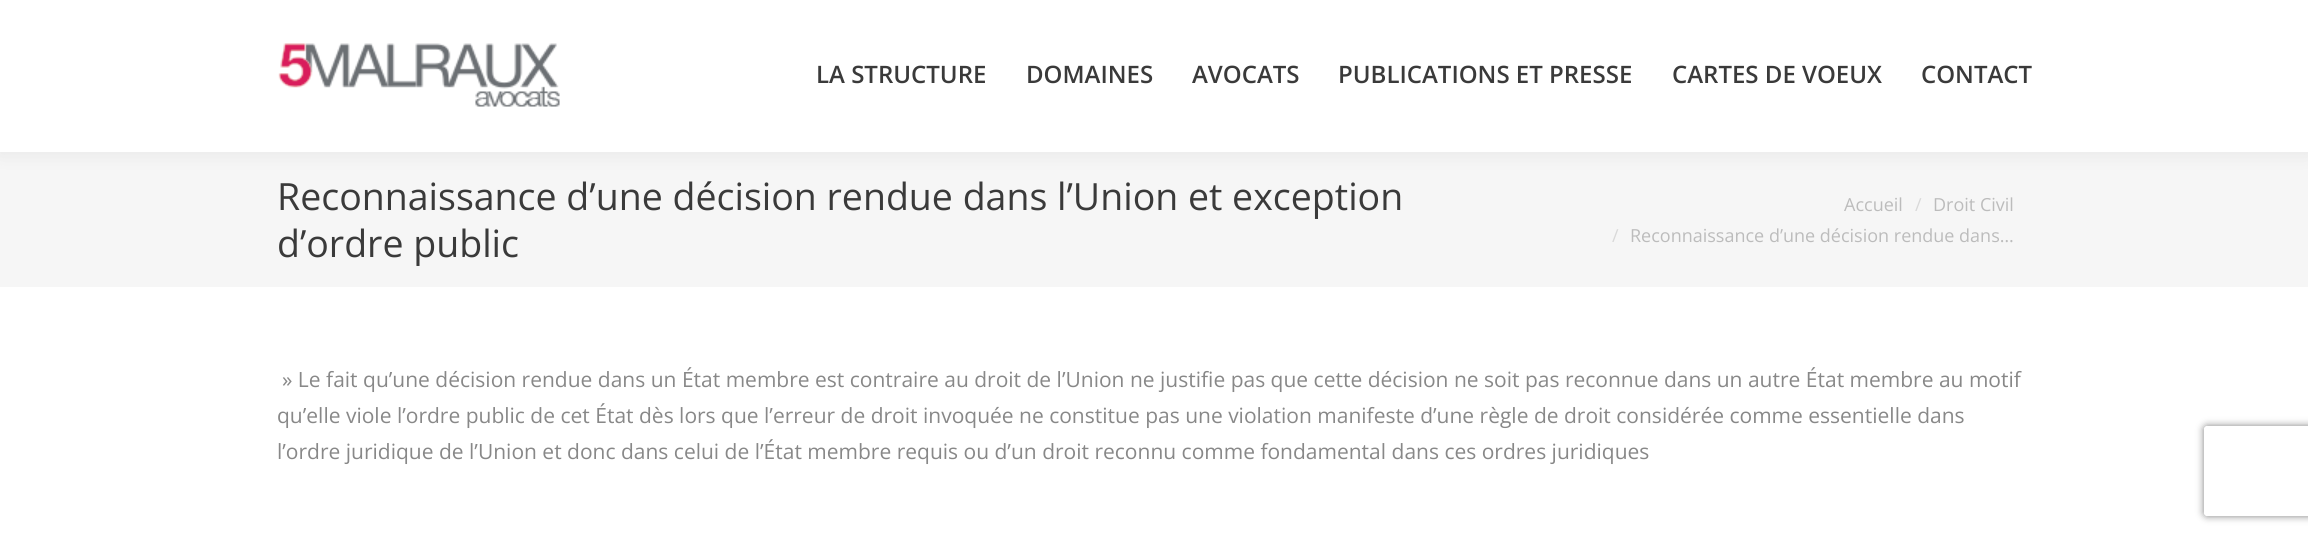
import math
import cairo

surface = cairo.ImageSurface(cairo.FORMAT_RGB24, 2308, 537)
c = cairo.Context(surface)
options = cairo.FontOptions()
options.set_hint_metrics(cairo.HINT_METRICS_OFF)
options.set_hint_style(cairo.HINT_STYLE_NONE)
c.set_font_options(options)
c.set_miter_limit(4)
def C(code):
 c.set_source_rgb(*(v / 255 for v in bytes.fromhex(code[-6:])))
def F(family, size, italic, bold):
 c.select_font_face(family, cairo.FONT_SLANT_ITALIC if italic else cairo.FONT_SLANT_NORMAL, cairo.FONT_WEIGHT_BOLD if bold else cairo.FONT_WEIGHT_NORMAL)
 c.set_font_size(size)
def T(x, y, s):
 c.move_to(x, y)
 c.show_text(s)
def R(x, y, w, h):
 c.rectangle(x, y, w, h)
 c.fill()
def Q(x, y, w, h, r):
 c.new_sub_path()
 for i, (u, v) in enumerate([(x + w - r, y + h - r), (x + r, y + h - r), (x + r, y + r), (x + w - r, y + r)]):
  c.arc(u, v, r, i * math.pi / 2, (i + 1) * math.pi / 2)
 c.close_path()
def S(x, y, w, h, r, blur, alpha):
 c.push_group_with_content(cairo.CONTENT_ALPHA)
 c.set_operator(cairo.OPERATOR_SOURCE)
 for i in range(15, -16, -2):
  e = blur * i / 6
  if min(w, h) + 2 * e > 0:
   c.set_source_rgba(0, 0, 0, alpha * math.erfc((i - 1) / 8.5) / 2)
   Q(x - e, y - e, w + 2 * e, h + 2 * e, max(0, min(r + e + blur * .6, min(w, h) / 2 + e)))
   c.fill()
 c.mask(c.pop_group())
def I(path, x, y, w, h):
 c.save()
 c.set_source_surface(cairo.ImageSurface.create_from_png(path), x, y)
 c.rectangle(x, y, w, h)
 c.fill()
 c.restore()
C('ffffff')
c.paint()
C('f6f6f6')
R(0,152,2308,135)
C('000000')
S(-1,-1,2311,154,0,11,.07)
C('ffffff')
R(0,0,2308,152)
I('1.png',278,43,282,64)
F('Open Sans SemiBold',24,0,0)
C('3a3a3a')
T(816,83,'LA STRUCTURE')
T(1026,83,'DOMAINES')
T(1192,83,'AVOCATS')
T(1338,83,'PUBLICATIONS ET PRESSE')
T(1672,83,'CARTES DE VOEUX')
T(1921,83,'CONTACT')
F('Open Sans',37.5,0,0)
T(277,210,'Reconnaissance d’une décision rendue dans l’Union et exception')
T(277,257,'d’ordre public')
F('Open Sans',18,0,0)
C('bcbcbc')
T(1844,211,'Accueil')
C('d9d9d9')
T(1915,211,'/')
C('bcbcbc')
T(1933,211,'Droit Civil')
C('d9d9d9')
T(1612,242,'/')
C('bcbcbc')
T(1630,242,'Reconnaissance d’une décision rendue dans…')
F('Open Sans',21,0,0)
C('888888')
T(282,387,'» Le fait qu’une décision rendue dans un État membre est contraire au droit de l’Union ne justifie pas que cette décision ne soit pas reconnue dans un autre État membre au motif')
T(277,423,'qu’elle viole l’ordre public de cet État dès lors que l’erreur de droit invoquée ne constitue pas une violation manifeste d’une règle de droit considérée comme essentielle dans')
T(277,459,'l’ordre juridique de l’Union et donc dans celui de l’État membre requis ou d’un droit reconnu comme fondamental dans ces ordres juridiques')
c.save()
c.set_fill_rule(cairo.FILL_RULE_EVEN_ODD)
c.new_path()
c.move_to(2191,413)
c.line_to(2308,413)
c.line_to(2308,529)
c.line_to(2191,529)
c.close_path()
c.move_to(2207,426)
c.line_to(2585,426)
c.curve_to(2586.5,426,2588,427.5,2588,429)
c.line_to(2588,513)
c.curve_to(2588,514.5,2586.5,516,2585,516)
c.line_to(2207,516)
c.curve_to(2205.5,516,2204,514.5,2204,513)
c.line_to(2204,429)
c.curve_to(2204,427.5,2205.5,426,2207,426)
c.close_path()
c.clip()
C('808080')
S(2204,426,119,90,3,4,1)
c.restore()
surface.write_to_png('o.png')
